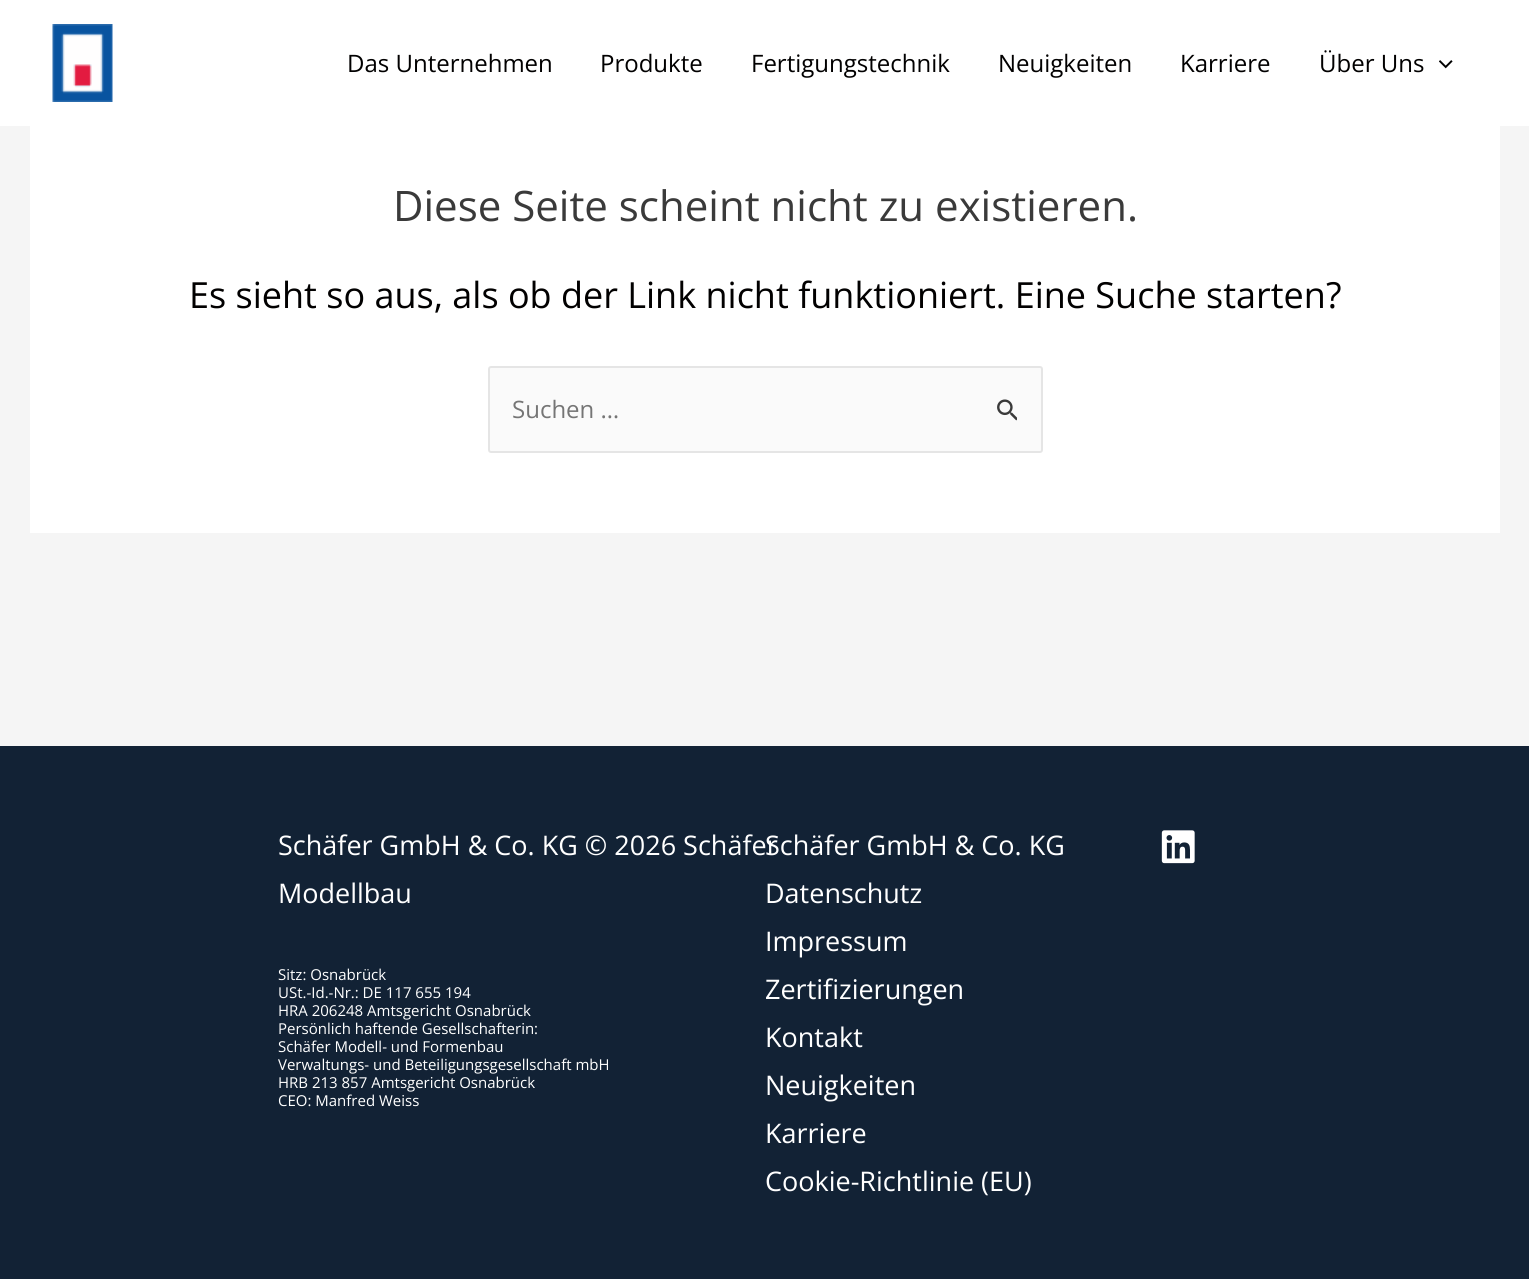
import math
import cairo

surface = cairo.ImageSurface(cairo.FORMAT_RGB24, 1529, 1279)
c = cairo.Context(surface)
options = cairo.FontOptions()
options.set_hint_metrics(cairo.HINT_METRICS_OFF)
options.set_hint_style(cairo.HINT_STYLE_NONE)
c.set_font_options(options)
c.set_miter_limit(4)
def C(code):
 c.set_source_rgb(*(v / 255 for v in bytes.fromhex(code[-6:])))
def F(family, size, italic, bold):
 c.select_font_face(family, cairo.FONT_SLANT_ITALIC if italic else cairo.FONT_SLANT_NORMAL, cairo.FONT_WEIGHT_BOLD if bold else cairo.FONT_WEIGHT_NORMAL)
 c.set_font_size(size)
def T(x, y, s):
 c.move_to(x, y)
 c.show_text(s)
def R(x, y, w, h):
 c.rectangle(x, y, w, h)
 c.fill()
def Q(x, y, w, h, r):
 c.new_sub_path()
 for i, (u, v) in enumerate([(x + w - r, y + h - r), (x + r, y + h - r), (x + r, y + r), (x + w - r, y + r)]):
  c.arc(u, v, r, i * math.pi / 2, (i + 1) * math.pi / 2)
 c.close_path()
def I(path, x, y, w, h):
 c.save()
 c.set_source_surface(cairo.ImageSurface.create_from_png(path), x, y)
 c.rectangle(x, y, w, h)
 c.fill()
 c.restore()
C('f5f5f5')
c.paint()
C('ffffff')
R(0,0,1529,126)
I('1.png',52,24,61,78)
F('Open Sans',24,0,0)
C('010000')
T(347,72,'Das Unternehmen')
T(600,72,'Produkte')
T(751,72,'Fertigungstechnik')
T(998,72,'Neuigkeiten')
T(1180,72,'Karriere')
T(1319,72,'Über Uns')
I('2.png',1439,60,14,9)
C('ffffff')
R(30,126,1470,407)
F('Open Sans',42,0,0)
C('3a3a3a')
T(393,221,'Diese Seite scheint nicht zu existieren.')
F('Open Sans',36,0,0)
C('010000')
T(189,308,'Es sieht so aus, als ob der Link nicht funktioniert. Eine Suche starten?')
C('fafafa')
Q(489,367,553,85,2)
c.fill_preserve()
C('e5e5e5')
c.stroke()
F('Open Sans',24,0,0)
C('757575')
T(512,418,'Suchen …')
I('3.png',997,399,20,22)
C('122235')
R(0,746,1529,533)
F('Open Sans',27,0,0)
C('ffffff')
T(278,855,'Schäfer GmbH & Co. KG © 2026 Schäfer')
T(278,903,'Modellbau')
F('Open Sans',15,0,0)
T(278,980,'Sitz: Osnabrück')
T(278,998,'USt.-Id.-Nr.: DE 117 655 194')
T(278,1016,'HRA 206248 Amtsgericht Osnabrück')
T(278,1034,'Persönlich haftende Gesellschafterin:')
T(278,1052,'Schäfer Modell- und Formenbau')
T(278,1070,'Verwaltungs- und Beteiligungsgesellschaft mbH')
T(278,1088,'HRB 213 857 Amtsgericht Osnabrück')
T(278,1106,'CEO: Manfred Weiss')
F('Open Sans',27,0,0)
T(765,855,'Schäfer GmbH & Co. KG')
T(765,903,'Datenschutz')
T(765,951,'Impressum')
T(765,999,'Zertifizierungen')
T(765,1047,'Kontakt')
T(765,1095,'Neuigkeiten')
T(765,1143,'Karriere')
T(765,1191,'Cookie-Richtlinie (EU)')
I('4.png',1161,830,34,34)
surface.write_to_png('o.png')
